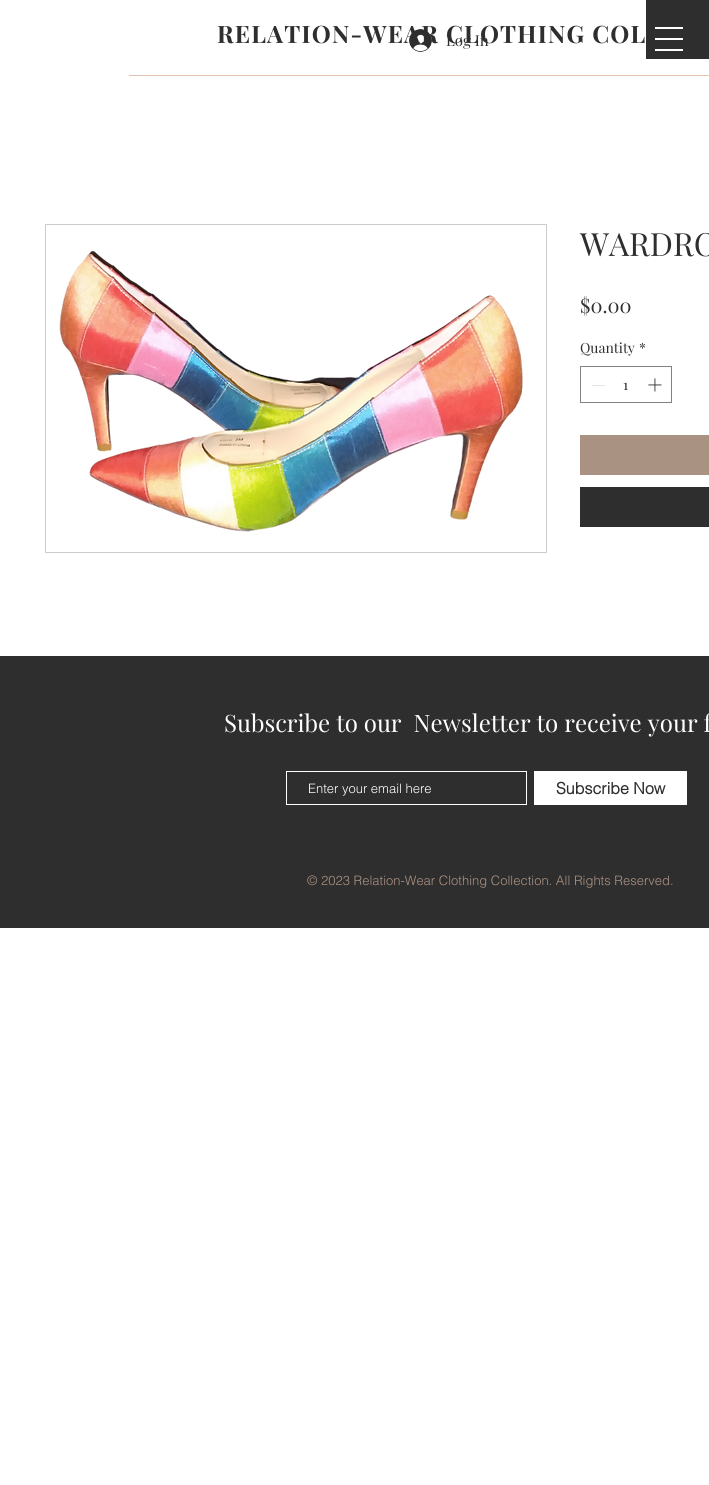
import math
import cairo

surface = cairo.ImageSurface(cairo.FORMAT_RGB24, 709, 1485)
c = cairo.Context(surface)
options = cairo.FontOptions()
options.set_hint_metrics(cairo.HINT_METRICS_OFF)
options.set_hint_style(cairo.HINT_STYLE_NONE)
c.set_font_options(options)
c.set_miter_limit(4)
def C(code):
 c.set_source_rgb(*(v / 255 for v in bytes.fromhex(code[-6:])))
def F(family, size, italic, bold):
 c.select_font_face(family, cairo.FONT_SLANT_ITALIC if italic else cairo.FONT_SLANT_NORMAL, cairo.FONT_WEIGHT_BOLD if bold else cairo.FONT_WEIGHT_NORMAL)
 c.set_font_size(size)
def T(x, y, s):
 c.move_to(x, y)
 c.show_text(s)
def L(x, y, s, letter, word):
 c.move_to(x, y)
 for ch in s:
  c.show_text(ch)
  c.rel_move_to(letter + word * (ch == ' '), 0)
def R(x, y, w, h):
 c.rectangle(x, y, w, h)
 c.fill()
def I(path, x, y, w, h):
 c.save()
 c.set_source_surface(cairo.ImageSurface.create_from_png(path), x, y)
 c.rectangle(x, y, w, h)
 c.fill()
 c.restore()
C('ffffff')
c.paint()
F('Playfair Display',24,0,1)
C('2f2e2e')
L(217,43,'RELATION-WEAR CLOTHING COL',1.2,0)
C('e3c2af')
R(129,75,580,1)
I('1.png',409,29,23,23)
F('Playfair Display',15,0,0)
C('2f2e2e')
T(446,46,'Log In')
R(646,0,63,59)
C('ffffff')
R(655,27,28,2)
R(655,38,28,2)
R(655,49,28,2)
c.rectangle(45.5,224.5,501,328)
C('cccccc')
c.set_line_width(1)
c.stroke()
I('2.png',59,250,464,282)
F('Playfair Display',32,0,0)
C('2f2e2e')
T(580,256,'WARDRO')
F('Playfair Display',20,0,0)
T(580,313,'$0.00')
F('Playfair Display',14,0,0)
T(580,353,'Quantity')
T(639,353,'*')
c.rectangle(580.5,366.5,91,36)
C('828282')
c.stroke()
C('e3e3e3')
R(592,385,13,1)
C('2f2e2e')
T(623,390,'1')
I('3.png',648,378,14,14)
C('aa9283')
R(580,435,129,40)
C('2f2e2e')
R(580,487,129,40)
R(0,656,709,272)
F('Playfair Display',24,0,0)
C('ffffff')
T(224,732,'Subscribe to our  Newsletter to receive your f')
c.rectangle(286.5,771.5,240,33)
c.stroke()
F('helvetica Light',13,0,0)
T(308,793,'Enter your email here')
R(534,771,153,34)
F('helvetica',16,0,1)
C('2f2e2e')
T(556,794,'Subscribe Now')
F('helvetica Light',13,0,0)
C('aa9283')
T(307,885,'© 2023 Relation-Wear Clothing Collection. All Rights Reserved.')
surface.write_to_png('o.png')
